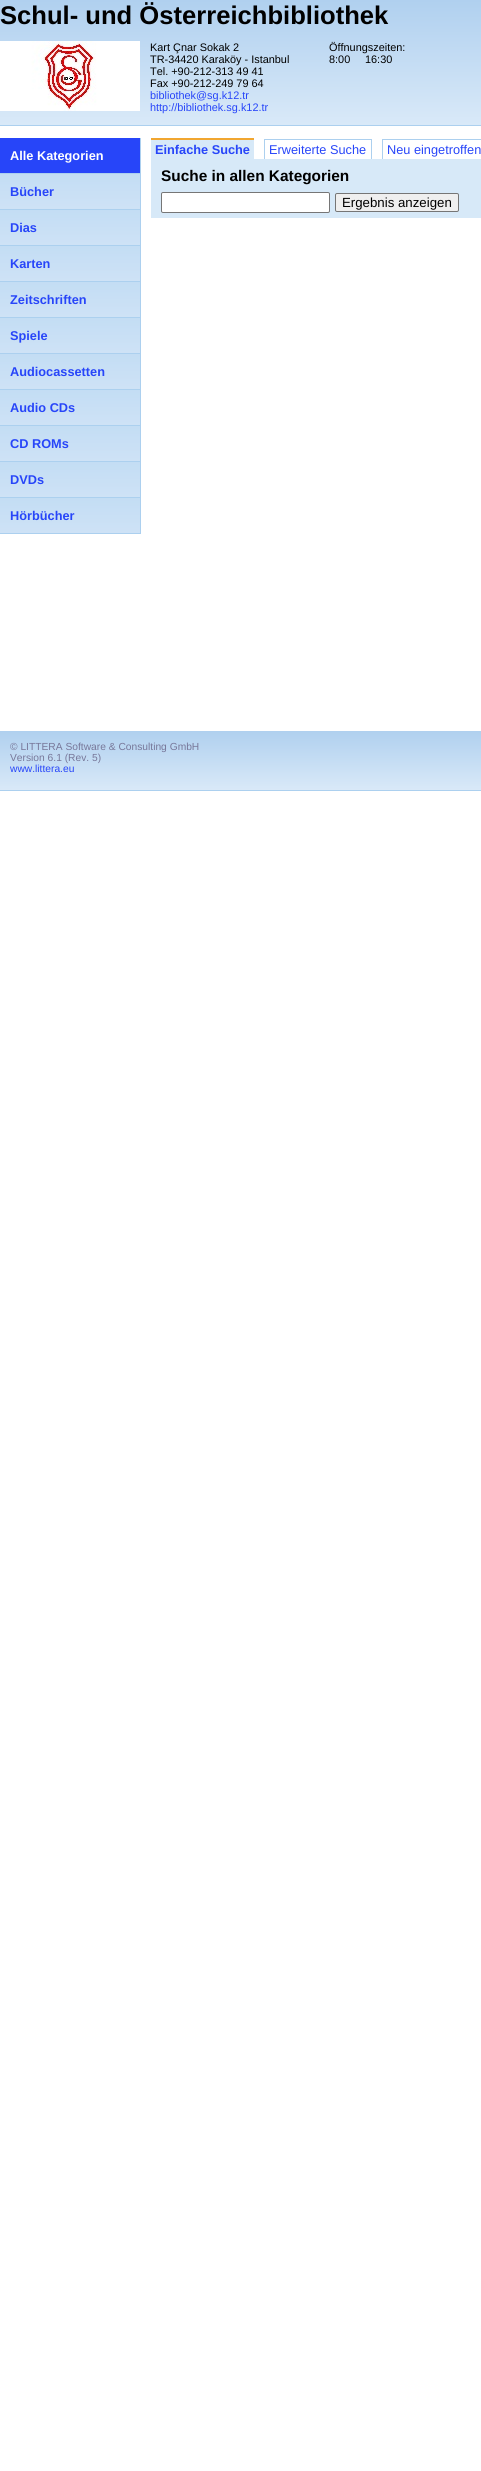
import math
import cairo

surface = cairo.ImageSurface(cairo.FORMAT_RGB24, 481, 2471)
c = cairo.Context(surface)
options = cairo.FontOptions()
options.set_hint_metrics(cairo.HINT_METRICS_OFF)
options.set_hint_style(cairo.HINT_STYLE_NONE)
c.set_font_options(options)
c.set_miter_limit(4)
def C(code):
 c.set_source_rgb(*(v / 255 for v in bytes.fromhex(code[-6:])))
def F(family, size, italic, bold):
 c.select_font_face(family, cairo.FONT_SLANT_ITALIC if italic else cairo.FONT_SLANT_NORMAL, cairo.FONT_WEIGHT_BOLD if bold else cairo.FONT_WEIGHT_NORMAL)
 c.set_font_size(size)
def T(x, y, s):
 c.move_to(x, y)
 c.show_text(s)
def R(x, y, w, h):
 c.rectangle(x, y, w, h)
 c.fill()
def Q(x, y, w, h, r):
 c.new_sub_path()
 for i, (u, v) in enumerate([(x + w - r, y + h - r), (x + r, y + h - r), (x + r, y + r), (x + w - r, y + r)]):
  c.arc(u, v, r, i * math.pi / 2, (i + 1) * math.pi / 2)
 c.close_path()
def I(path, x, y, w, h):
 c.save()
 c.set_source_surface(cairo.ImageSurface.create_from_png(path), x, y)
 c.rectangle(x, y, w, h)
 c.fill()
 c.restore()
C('ffffff')
c.paint()
gradient = cairo.LinearGradient(241,0,241,125)
gradient.add_color_stop_rgba(0,0.69,0.816,0.937,1)
gradient.add_color_stop_rgba(1,0.851,0.914,0.973,1)
c.set_source(gradient)
R(0,0,481,125)
C('acd0ef')
R(0,125,481,1)
F('Liberation Sans',25.6,0,1)
C('000000')
T(0,24,'Schul- und Österreichbibliothek')
I('1.png',0,41,140,70)
F('Liberation Sans',10.9,0,0)
T(150,51,'Kart Çnar Sokak 2')
T(150,63,'TR-34420 Karaköy - Istanbul')
T(150,75,'Tel. +90-212-313 49 41')
T(150,87,'Fax +90-212-249 79 64')
C('2745f9')
T(150,99,'bibliothek@sg.k12.tr')
T(150,111,'http://bibliothek.sg.k12.tr')
C('000000')
T(329,51,'Öffnungszeiten:')
T(329,63,'8:00')
T(365,63,'16:30')
C('2745f9')
R(0,138,140,35)
C('acd0ef')
R(140,138,1,396)
R(0,173,141,1)
F('Liberation Sans',12.75,0,1)
C('ffffff')
T(10,160,'Alle Kategorien')
gradient = cairo.LinearGradient(70,174,70,209)
gradient.add_color_stop_rgba(0,0.765,0.867,0.957,1)
gradient.add_color_stop_rgba(1,0.808,0.886,0.965,1)
c.set_source(gradient)
R(0,174,140,35)
C('acd0ef')
R(0,209,141,1)
C('2745f9')
T(10,196,'Bücher')
gradient = cairo.LinearGradient(70,210,70,245)
gradient.add_color_stop_rgba(0,0.765,0.867,0.957,1)
gradient.add_color_stop_rgba(1,0.808,0.886,0.965,1)
c.set_source(gradient)
R(0,210,140,35)
C('acd0ef')
R(0,245,141,1)
C('2745f9')
T(10,232,'Dias')
gradient = cairo.LinearGradient(70,246,70,281)
gradient.add_color_stop_rgba(0,0.765,0.867,0.957,1)
gradient.add_color_stop_rgba(1,0.808,0.886,0.965,1)
c.set_source(gradient)
R(0,246,140,35)
C('acd0ef')
R(0,281,141,1)
C('2745f9')
T(10,268,'Karten')
gradient = cairo.LinearGradient(70,282,70,317)
gradient.add_color_stop_rgba(0,0.765,0.867,0.957,1)
gradient.add_color_stop_rgba(1,0.808,0.886,0.965,1)
c.set_source(gradient)
R(0,282,140,35)
C('acd0ef')
R(0,317,141,1)
C('2745f9')
T(10,304,'Zeitschriften')
gradient = cairo.LinearGradient(70,318,70,353)
gradient.add_color_stop_rgba(0,0.765,0.867,0.957,1)
gradient.add_color_stop_rgba(1,0.808,0.886,0.965,1)
c.set_source(gradient)
R(0,318,140,35)
C('acd0ef')
R(0,353,141,1)
C('2745f9')
T(10,340,'Spiele')
gradient = cairo.LinearGradient(70,354,70,389)
gradient.add_color_stop_rgba(0,0.765,0.867,0.957,1)
gradient.add_color_stop_rgba(1,0.808,0.886,0.965,1)
c.set_source(gradient)
R(0,354,140,35)
C('acd0ef')
R(0,389,141,1)
C('2745f9')
T(10,376,'Audiocassetten')
gradient = cairo.LinearGradient(70,390,70,425)
gradient.add_color_stop_rgba(0,0.765,0.867,0.957,1)
gradient.add_color_stop_rgba(1,0.808,0.886,0.965,1)
c.set_source(gradient)
R(0,390,140,35)
C('acd0ef')
R(0,425,141,1)
C('2745f9')
T(10,412,'Audio CDs')
gradient = cairo.LinearGradient(70,426,70,461)
gradient.add_color_stop_rgba(0,0.765,0.867,0.957,1)
gradient.add_color_stop_rgba(1,0.808,0.886,0.965,1)
c.set_source(gradient)
R(0,426,140,35)
C('acd0ef')
R(0,461,141,1)
C('2745f9')
T(10,448,'CD ROMs')
gradient = cairo.LinearGradient(70,462,70,497)
gradient.add_color_stop_rgba(0,0.765,0.867,0.957,1)
gradient.add_color_stop_rgba(1,0.808,0.886,0.965,1)
c.set_source(gradient)
R(0,462,140,35)
C('acd0ef')
R(0,497,141,1)
C('2745f9')
T(10,484,'DVDs')
gradient = cairo.LinearGradient(70,498,70,533)
gradient.add_color_stop_rgba(0,0.765,0.867,0.957,1)
gradient.add_color_stop_rgba(1,0.808,0.886,0.965,1)
c.set_source(gradient)
R(0,498,140,35)
C('acd0ef')
R(0,533,141,1)
C('2745f9')
T(10,520,'Hörbücher')
C('d7e9f8')
R(151,140,103,19)
C('f1a630')
R(151,138,103,2)
C('2745f9')
T(155,154,'Einfache Suche')
C('acd0ef')
R(264,139,108,1)
R(371,139,1,20)
R(264,139,1,20)
F('Liberation Sans',12.75,0,0)
C('2745f9')
T(269,154,'Erweiterte Suche')
C('acd0ef')
R(382,139,99,1)
R(382,139,1,20)
C('2745f9')
T(387,154,'Neu eingetroffen')
C('d7e9f8')
R(151,159,330,59)
F('Liberation Sans',15.4,0,1)
C('000000')
T(161,181,'Suche in allen Kategorien')
C('ffffff')
Q(161.5,192.5,168,20,1.5)
c.fill_preserve()
C('767676')
c.set_line_width(1)
c.stroke()
C('efefef')
Q(335.5,193.5,123,18,1.5)
c.fill_preserve()
C('767676')
c.stroke()
F('Liberation Sans',13.25,0,0)
C('000000')
T(342,207,'Ergebnis anzeigen')
gradient = cairo.LinearGradient(480,731,480,790)
gradient.add_color_stop_rgba(0,0.69,0.816,0.937,1)
gradient.add_color_stop_rgba(1,0.851,0.914,0.973,1)
c.set_source(gradient)
R(0,731,481,59)
C('acd0ef')
R(0,790,481,1)
F('Liberation Sans',10.25,0,0)
C('777799')
T(10,750,'© LITTERA Software & Consulting GmbH')
T(10,761,'Version 6.1 (Rev. 5)')
C('2745f9')
T(10,772,'www.littera.eu')
surface.write_to_png('o.png')
